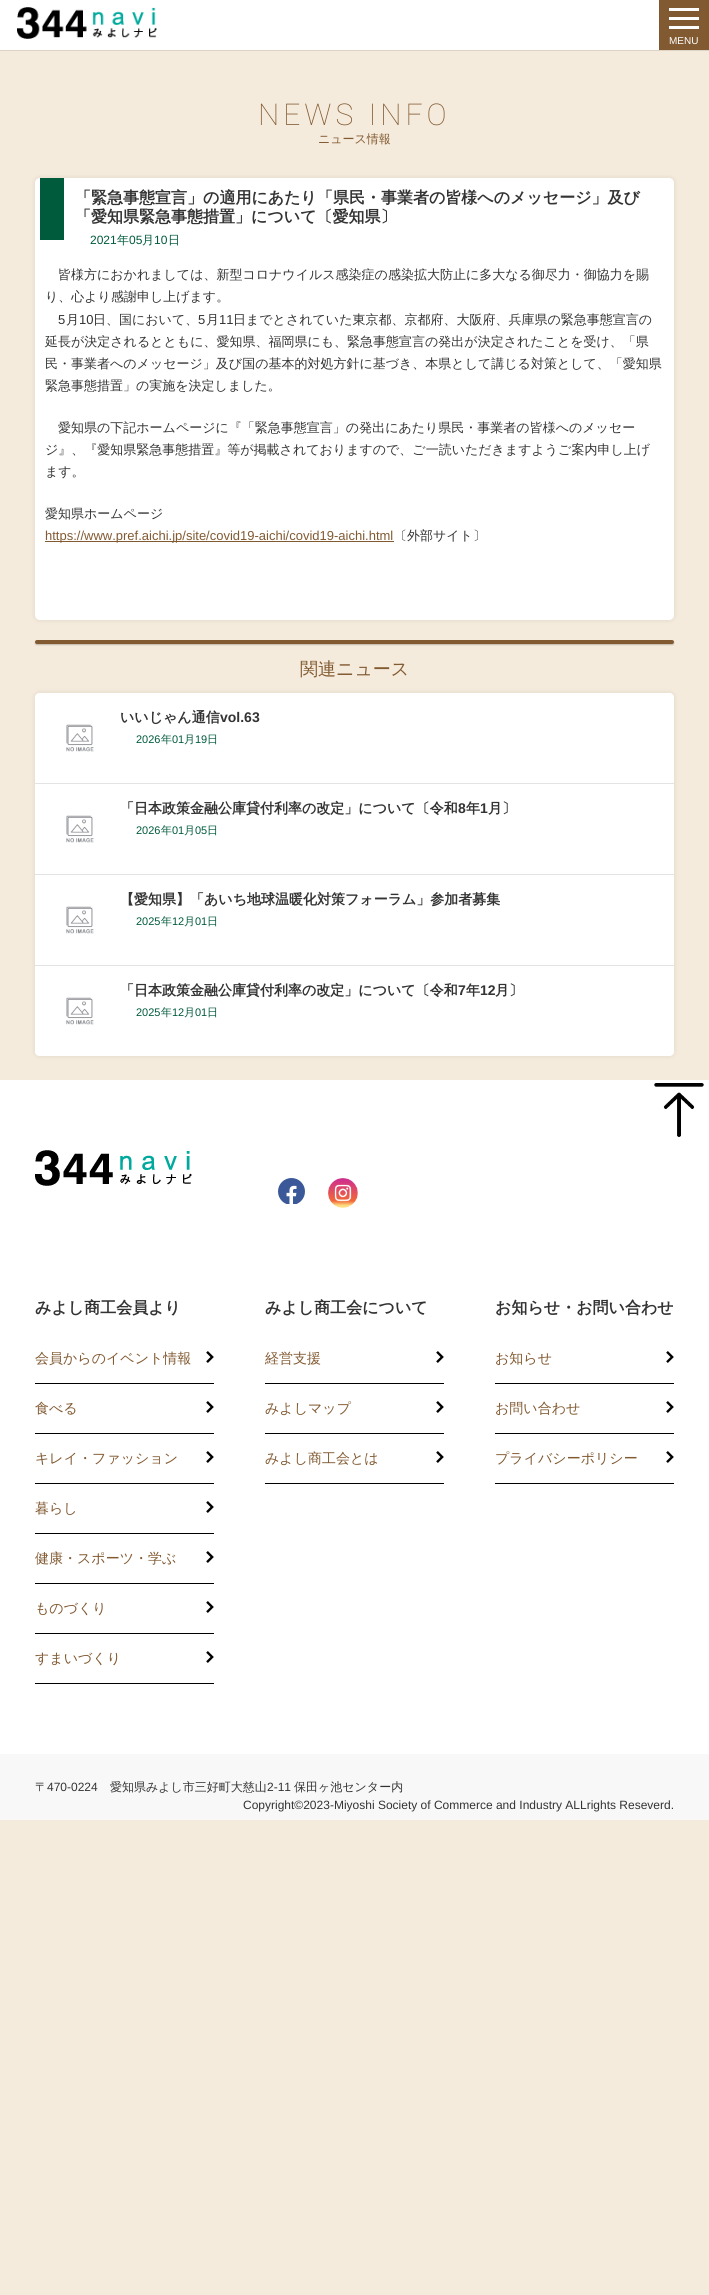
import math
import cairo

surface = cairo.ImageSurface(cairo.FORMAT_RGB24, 709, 2295)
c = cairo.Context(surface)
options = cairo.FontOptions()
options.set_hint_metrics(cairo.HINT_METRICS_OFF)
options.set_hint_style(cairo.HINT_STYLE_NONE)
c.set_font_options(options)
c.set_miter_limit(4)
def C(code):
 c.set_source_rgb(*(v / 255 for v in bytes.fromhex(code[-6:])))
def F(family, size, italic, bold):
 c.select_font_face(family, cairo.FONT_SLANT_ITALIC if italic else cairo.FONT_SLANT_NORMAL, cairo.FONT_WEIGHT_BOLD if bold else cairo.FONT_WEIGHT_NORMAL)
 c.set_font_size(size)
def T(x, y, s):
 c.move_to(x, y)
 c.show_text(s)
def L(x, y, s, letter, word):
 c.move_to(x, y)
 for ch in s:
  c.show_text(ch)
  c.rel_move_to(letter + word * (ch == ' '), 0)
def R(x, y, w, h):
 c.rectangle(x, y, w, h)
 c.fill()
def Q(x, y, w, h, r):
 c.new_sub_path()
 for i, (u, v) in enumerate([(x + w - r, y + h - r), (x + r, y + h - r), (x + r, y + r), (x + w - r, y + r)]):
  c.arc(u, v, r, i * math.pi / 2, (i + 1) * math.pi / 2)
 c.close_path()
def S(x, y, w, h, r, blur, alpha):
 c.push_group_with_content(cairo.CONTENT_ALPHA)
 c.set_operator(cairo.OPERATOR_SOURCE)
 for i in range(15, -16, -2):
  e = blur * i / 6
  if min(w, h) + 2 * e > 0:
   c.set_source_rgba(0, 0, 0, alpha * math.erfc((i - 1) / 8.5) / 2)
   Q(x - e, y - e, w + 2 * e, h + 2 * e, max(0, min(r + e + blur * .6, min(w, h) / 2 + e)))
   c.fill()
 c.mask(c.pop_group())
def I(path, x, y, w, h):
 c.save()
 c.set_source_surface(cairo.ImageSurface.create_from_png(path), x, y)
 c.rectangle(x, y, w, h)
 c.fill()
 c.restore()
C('f5ebdc')
c.paint()
C('ddd4c6')
R(0,50,709,1)
C('ffffff')
R(0,0,659,50)
I('1.png',17,7,140,32)
C('825a32')
R(659,0,50,50)
C('ffffff')
R(669,8,30,3)
R(669,17,30,3)
R(669,26,30,3)
F('Liberation Sans',10,0,0)
T(669,44,'MENU')
F('Roboto ExtraLight',30,0,0)
C('825a32')
L(258,125,'NEWS INFO',4,0)
F('WenQuanYi Zen Hei Medium',12,0,0)
T(318,143,'ニュース情報')
C('000000')
S(35,178,639,442,5,2.5,.1)
C('ffffff')
Q(35,178,639,442,5)
c.fill()
C('005a3c')
R(40,178,24,62)
F('WenQuanYi Zen Hei',16,0,1)
C('333333')
T(75,203,'「緊急事態宣言」の適用にあたり「県民・事業者の皆様へのメッセージ」及び')
T(75,222,'「愛知県緊急事態措置」について〔愛知県〕')
F('Liberation Sans',12,0,0)
C('005a3c')
T(90,244,'2021')
F('WenQuanYi Zen Hei Medium',12,0,0)
T(117,244,'年')
F('Liberation Sans',12,0,0)
T(129,244,'05')
F('WenQuanYi Zen Hei Medium',12,0,0)
T(142,244,'月')
F('Liberation Sans',12,0,0)
T(154,244,'10')
F('WenQuanYi Zen Hei Medium',12,0,0)
T(168,244,'日')
F('WenQuanYi Zen Hei Medium',13,0,0)
C('333333')
T(58,279,'皆様方におかれましては、新型コロナウイルス感染症の感染拡大防止に多大なる御尽力・御協力を賜')
T(45,301,'り、心より感謝申し上げます。')
F('Liberation Sans',13,0,0)
T(58,324,'5')
F('WenQuanYi Zen Hei Medium',13,0,0)
T(66,324,'月')
F('Liberation Sans',13,0,0)
T(79,324,'10')
F('WenQuanYi Zen Hei Medium',13,0,0)
T(93,324,'日、国において、')
F('Liberation Sans',13,0,0)
T(198,324,'5')
F('WenQuanYi Zen Hei Medium',13,0,0)
T(206,324,'月')
F('Liberation Sans',13,0,0)
T(219,324,'11')
F('WenQuanYi Zen Hei Medium',13,0,0)
T(233,324,'日までとされていた東京都、京都府、大阪府、兵庫県の緊急事態宣言の')
T(45,346,'延長が決定されるとともに、愛知県、福岡県にも、緊急事態宣言の発出が決定されたことを受け、「県')
T(45,368,'民・事業者へのメッセージ」及び国の基本的対処方針に基づき、本県として講じる対策として、「愛知県')
T(45,390,'緊急事態措置」の実施を決定しました。')
T(58,432,'愛知県の下記ホームページに『「緊急事態宣言」の発出にあたり県民・事業者の皆様へのメッセー')
T(45,454,'ジ』、『愛知県緊急事態措置』等が掲載されておりますので、ご一読いただきますようご案内申し上げ')
T(45,476,'ます。')
T(45,518,'愛知県ホームページ')
C('825a32')
R(45,541,349,1)
F('Liberation Sans',13,0,0)
T(45,540,'https://www.pref.aichi.jp/site/covid19-aichi/covid19-aichi.html')
F('WenQuanYi Zen Hei Medium',13,0,0)
C('333333')
T(394,540,'〔外部サイト〕')
C('000000')
S(35,641,639,4,2,.5,.2)
C('825a32')
Q(35,640,639,4,2)
c.fill()
F('WenQuanYi Zen Hei Medium',18,0,0)
T(300,675,'関連ニュース')
C('000000')
S(35,693,639,363,5,2.5,.1)
C('ffffff')
Q(35,693,639,363,5)
c.fill()
C('e3e3e3')
R(35,783,639,1)
C('ffffff')
c.new_path()
c.move_to(40,693)
c.line_to(669,693)
c.curve_to(672,693,674,695,674,698)
c.line_to(674,783)
c.line_to(35,783)
c.line_to(35,698)
c.curve_to(35,695,37,693,40,693)
c.close_path()
c.fill()
I('2.png',50,708,60,60)
F('WenQuanYi Zen Hei',14,0,1)
C('333333')
T(120,722,'いいじゃん通信')
F('Liberation Sans',14,0,1)
T(220,722,'vol.63')
F('Liberation Sans',11,0,0)
C('005a3c')
T(136,743,'2026')
F('WenQuanYi Zen Hei Medium',11,0,0)
T(161,743,'年')
F('Liberation Sans',11,0,0)
T(172,743,'01')
F('WenQuanYi Zen Hei Medium',11,0,0)
T(184,743,'月')
F('Liberation Sans',11,0,0)
T(195,743,'19')
F('WenQuanYi Zen Hei Medium',11,0,0)
T(207,743,'日')
C('e3e3e3')
R(35,874,639,1)
I('2.png',50,799,60,60)
F('WenQuanYi Zen Hei',14,0,1)
C('333333')
T(120,813,'「日本政策金融公庫貸付利率の改定」について〔令和')
F('Liberation Sans',14,0,1)
T(458,813,'8')
F('WenQuanYi Zen Hei',14,0,1)
T(466,813,'年')
F('Liberation Sans',14,0,1)
T(480,813,'1')
F('WenQuanYi Zen Hei',14,0,1)
T(488,813,'月〕')
F('Liberation Sans',11,0,0)
C('005a3c')
T(136,834,'2026')
F('WenQuanYi Zen Hei Medium',11,0,0)
T(161,834,'年')
F('Liberation Sans',11,0,0)
T(172,834,'01')
F('WenQuanYi Zen Hei Medium',11,0,0)
T(184,834,'月')
F('Liberation Sans',11,0,0)
T(195,834,'05')
F('WenQuanYi Zen Hei Medium',11,0,0)
T(207,834,'日')
C('e3e3e3')
R(35,965,639,1)
I('2.png',50,890,60,60)
F('WenQuanYi Zen Hei',14,0,1)
C('333333')
T(120,904,'【愛知県】「あいち地球温暖化対策フォーラム」参加者募集')
F('Liberation Sans',11,0,0)
C('005a3c')
T(136,925,'2025')
F('WenQuanYi Zen Hei Medium',11,0,0)
T(161,925,'年')
F('Liberation Sans',11,0,0)
T(172,925,'12')
F('WenQuanYi Zen Hei Medium',11,0,0)
T(184,925,'月')
F('Liberation Sans',11,0,0)
T(195,925,'01')
F('WenQuanYi Zen Hei Medium',11,0,0)
T(207,925,'日')
C('ffffff')
c.new_path()
c.move_to(35,966)
c.line_to(674,966)
c.line_to(674,1051)
c.curve_to(674,1054,672,1056,669,1056)
c.line_to(40,1056)
c.curve_to(37,1056,35,1054,35,1051)
c.close_path()
c.fill()
I('2.png',50,981,60,60)
F('WenQuanYi Zen Hei',14,0,1)
C('333333')
T(120,995,'「日本政策金融公庫貸付利率の改定」について〔令和')
F('Liberation Sans',14,0,1)
T(458,995,'7')
F('WenQuanYi Zen Hei',14,0,1)
T(466,995,'年')
F('Liberation Sans',14,0,1)
T(480,995,'12')
F('WenQuanYi Zen Hei',14,0,1)
T(495,995,'月〕')
F('Liberation Sans',11,0,0)
C('005a3c')
T(136,1016,'2025')
F('WenQuanYi Zen Hei Medium',11,0,0)
T(161,1016,'年')
F('Liberation Sans',11,0,0)
T(172,1016,'12')
F('WenQuanYi Zen Hei Medium',11,0,0)
T(184,1016,'月')
F('Liberation Sans',11,0,0)
T(195,1016,'01')
F('WenQuanYi Zen Hei Medium',11,0,0)
T(207,1016,'日')
C('ffffff')
R(0,1080,709,674)
I('3.png',654,1083,50,54)
I('4.png',35,1150,157,36)
I('5.png',278,1178,27,26)
I('6.png',328,1178,30,30)
F('WenQuanYi Zen Hei',16,0,1)
C('333333')
T(35,1313,'みよし商工会員より')
C('000000')
R(35,1383,179,1)
F('WenQuanYi Zen Hei Medium',14,0,0)
C('825a32')
T(35,1363,'会員からのイベント情報')
I('7.png',206,1351,8,12)
C('000000')
R(35,1433,179,1)
C('825a32')
T(35,1413,'食べる')
I('7.png',206,1401,8,12)
C('000000')
R(35,1483,179,1)
C('825a32')
T(35,1463,'キレイ・ファッション')
I('7.png',206,1451,8,12)
C('000000')
R(35,1533,179,1)
C('825a32')
T(35,1513,'暮らし')
I('7.png',206,1501,8,12)
C('000000')
R(35,1583,179,1)
C('825a32')
T(35,1563,'健康・スポーツ・学ぶ')
I('7.png',206,1551,8,12)
C('000000')
R(35,1633,179,1)
C('825a32')
T(35,1613,'ものづくり')
I('7.png',206,1601,8,12)
C('000000')
R(35,1683,179,1)
C('825a32')
T(35,1663,'すまいづくり')
I('7.png',206,1651,8,12)
F('WenQuanYi Zen Hei',16,0,1)
C('333333')
T(265,1313,'みよし商工会について')
C('000000')
R(265,1383,179,1)
F('WenQuanYi Zen Hei Medium',14,0,0)
C('825a32')
T(265,1363,'経営支援')
I('7.png',436,1351,8,12)
C('000000')
R(265,1433,179,1)
C('825a32')
T(265,1413,'みよしマップ')
I('7.png',436,1401,8,12)
C('000000')
R(265,1483,179,1)
C('825a32')
T(265,1463,'みよし商工会とは')
I('7.png',436,1451,8,12)
F('WenQuanYi Zen Hei',16,0,1)
C('333333')
T(495,1313,'お知らせ・お問い合わせ')
C('000000')
R(495,1383,179,1)
F('WenQuanYi Zen Hei Medium',14,0,0)
C('825a32')
T(495,1363,'お知らせ')
I('7.png',666,1351,8,12)
C('000000')
R(495,1433,179,1)
C('825a32')
T(495,1413,'お問い合わせ')
I('7.png',666,1401,8,12)
C('000000')
R(495,1483,179,1)
C('825a32')
T(495,1463,'プライバシーポリシー')
I('7.png',666,1451,8,12)
C('f8f8f8')
R(0,1754,709,66)
F('WenQuanYi Zen Hei Medium',12,0,0)
C('333333')
T(35,1791,'〒')
F('Liberation Sans',12,0,0)
T(47,1791,'470-0224')
F('WenQuanYi Zen Hei Medium',12,0,0)
T(110,1791,'愛知県みよし市三好町大慈山')
F('Liberation Sans',12,0,0)
T(267,1791,'2-11')
F('WenQuanYi Zen Hei Medium',12,0,0)
T(294,1791,'保田ヶ池センター内')
F('Liberation Sans',12,0,0)
T(243,1809,'Copyright©2023-Miyoshi Society of Commerce and Industry ALLrights Reseverd.')
surface.write_to_png('o.png')
